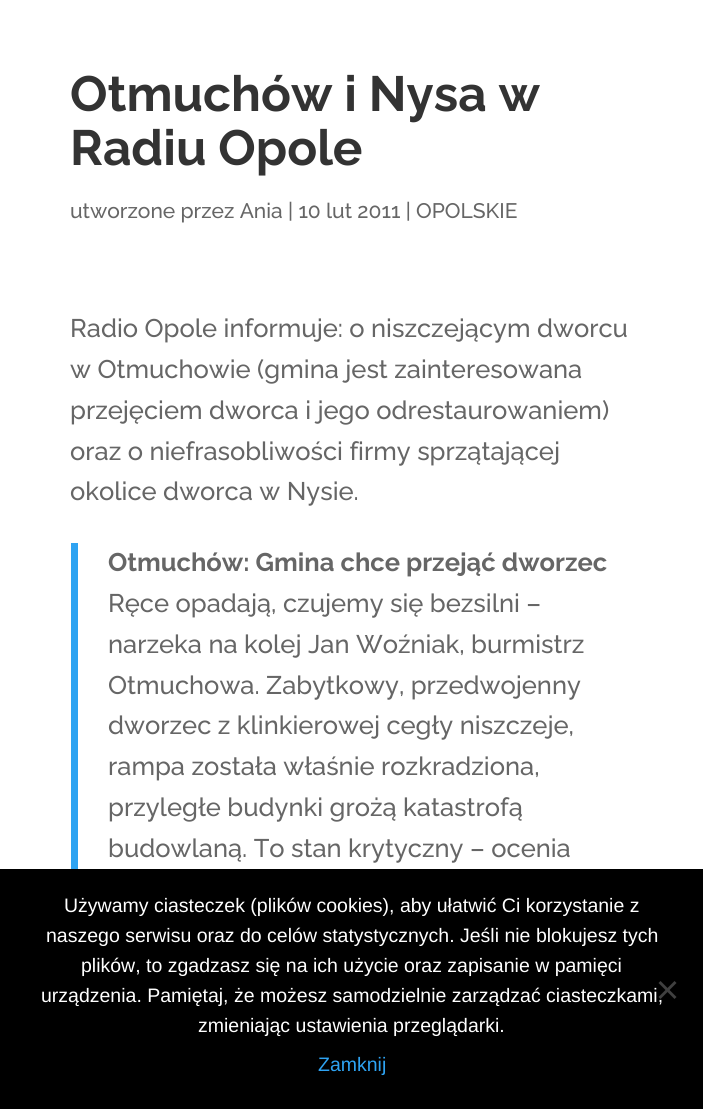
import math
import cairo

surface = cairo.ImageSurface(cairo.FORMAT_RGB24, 703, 1109)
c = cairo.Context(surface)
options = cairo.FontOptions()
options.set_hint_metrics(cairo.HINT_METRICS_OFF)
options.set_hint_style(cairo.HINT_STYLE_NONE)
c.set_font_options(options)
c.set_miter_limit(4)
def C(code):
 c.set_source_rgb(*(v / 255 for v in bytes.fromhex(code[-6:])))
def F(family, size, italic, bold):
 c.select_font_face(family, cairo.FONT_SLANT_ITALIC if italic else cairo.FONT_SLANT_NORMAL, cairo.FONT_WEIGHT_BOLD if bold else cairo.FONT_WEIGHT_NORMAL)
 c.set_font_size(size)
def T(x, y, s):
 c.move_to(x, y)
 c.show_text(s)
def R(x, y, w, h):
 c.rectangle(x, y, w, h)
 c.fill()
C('ffffff')
c.paint()
F('Raleway',49.5,0,1)
C('333333')
T(70,111,'Otmuchów i Nysa w')
T(70,165,'Radiu Opole')
F('Raleway Medium',21,0,0)
C('666666')
T(70,218,'utworzone przez Ania | 10 lut 2011 | OPOLSKIE')
F('Raleway Medium',25.5,0,0)
T(70,337,'Radio Opole informuje: o niszczejącym dworcu')
T(70,378,'w Otmuchowie (gmina jest zainteresowana')
T(70,419,'przejęciem dworca i jego odrestaurowaniem)')
T(70,460,'oraz o niefrasobliwości firmy sprzątającej')
T(70,500,'okolice dworca w Nysie.')
C('2ea3f2')
R(71,543,7,326)
F('Raleway',25.5,0,1)
C('666666')
T(108,571,'Otmuchów: Gmina chce przejąć dworzec')
F('Raleway Medium',25.5,0,0)
T(108,612,'Ręce opadają, czujemy się bezsilni –')
T(108,653,'narzeka na kolej Jan Woźniak, burmistrz')
T(108,694,'Otmuchowa. Zabytkowy, przedwojenny')
T(108,734,'dworzec z klinkierowej cegły niszczeje,')
T(108,775,'rampa została właśnie rozkradziona,')
T(108,816,'przyległe budynki grożą katastrofą')
T(108,857,'budowlaną. To stan krytyczny – ocenia')
C('000000')
R(0,869,703,240)
F('Liberation Sans',19.5,0,0)
C('ffffff')
T(64,912,'Używamy ciasteczek (plików cookies), aby ułatwić Ci korzystanie z')
T(46,942,'naszego serwisu oraz do celów statystycznych. Jeśli nie blokujesz tych')
T(81,972,'plików, to zgadzasz się na ich użycie oraz zapisanie w pamięci')
T(41,1002,'urządzenia. Pamiętaj, że możesz samodzielnie zarządzać ciasteczkami,')
T(198,1032,'zmieniając ustawienia przeglądarki.')
C('404040')
c.new_path()
c.move_to(674.5,981)
c.line_to(676.5,983)
c.line_to(660.5,999)
c.line_to(658.5,997)
c.close_path()
c.fill()
c.new_path()
c.move_to(658.5,983)
c.line_to(660.5,981)
c.line_to(676.5,997)
c.line_to(674.5,999)
c.close_path()
c.fill()
C('2ea3f2')
T(318,1071,'Zamknij')
surface.write_to_png('o.png')
